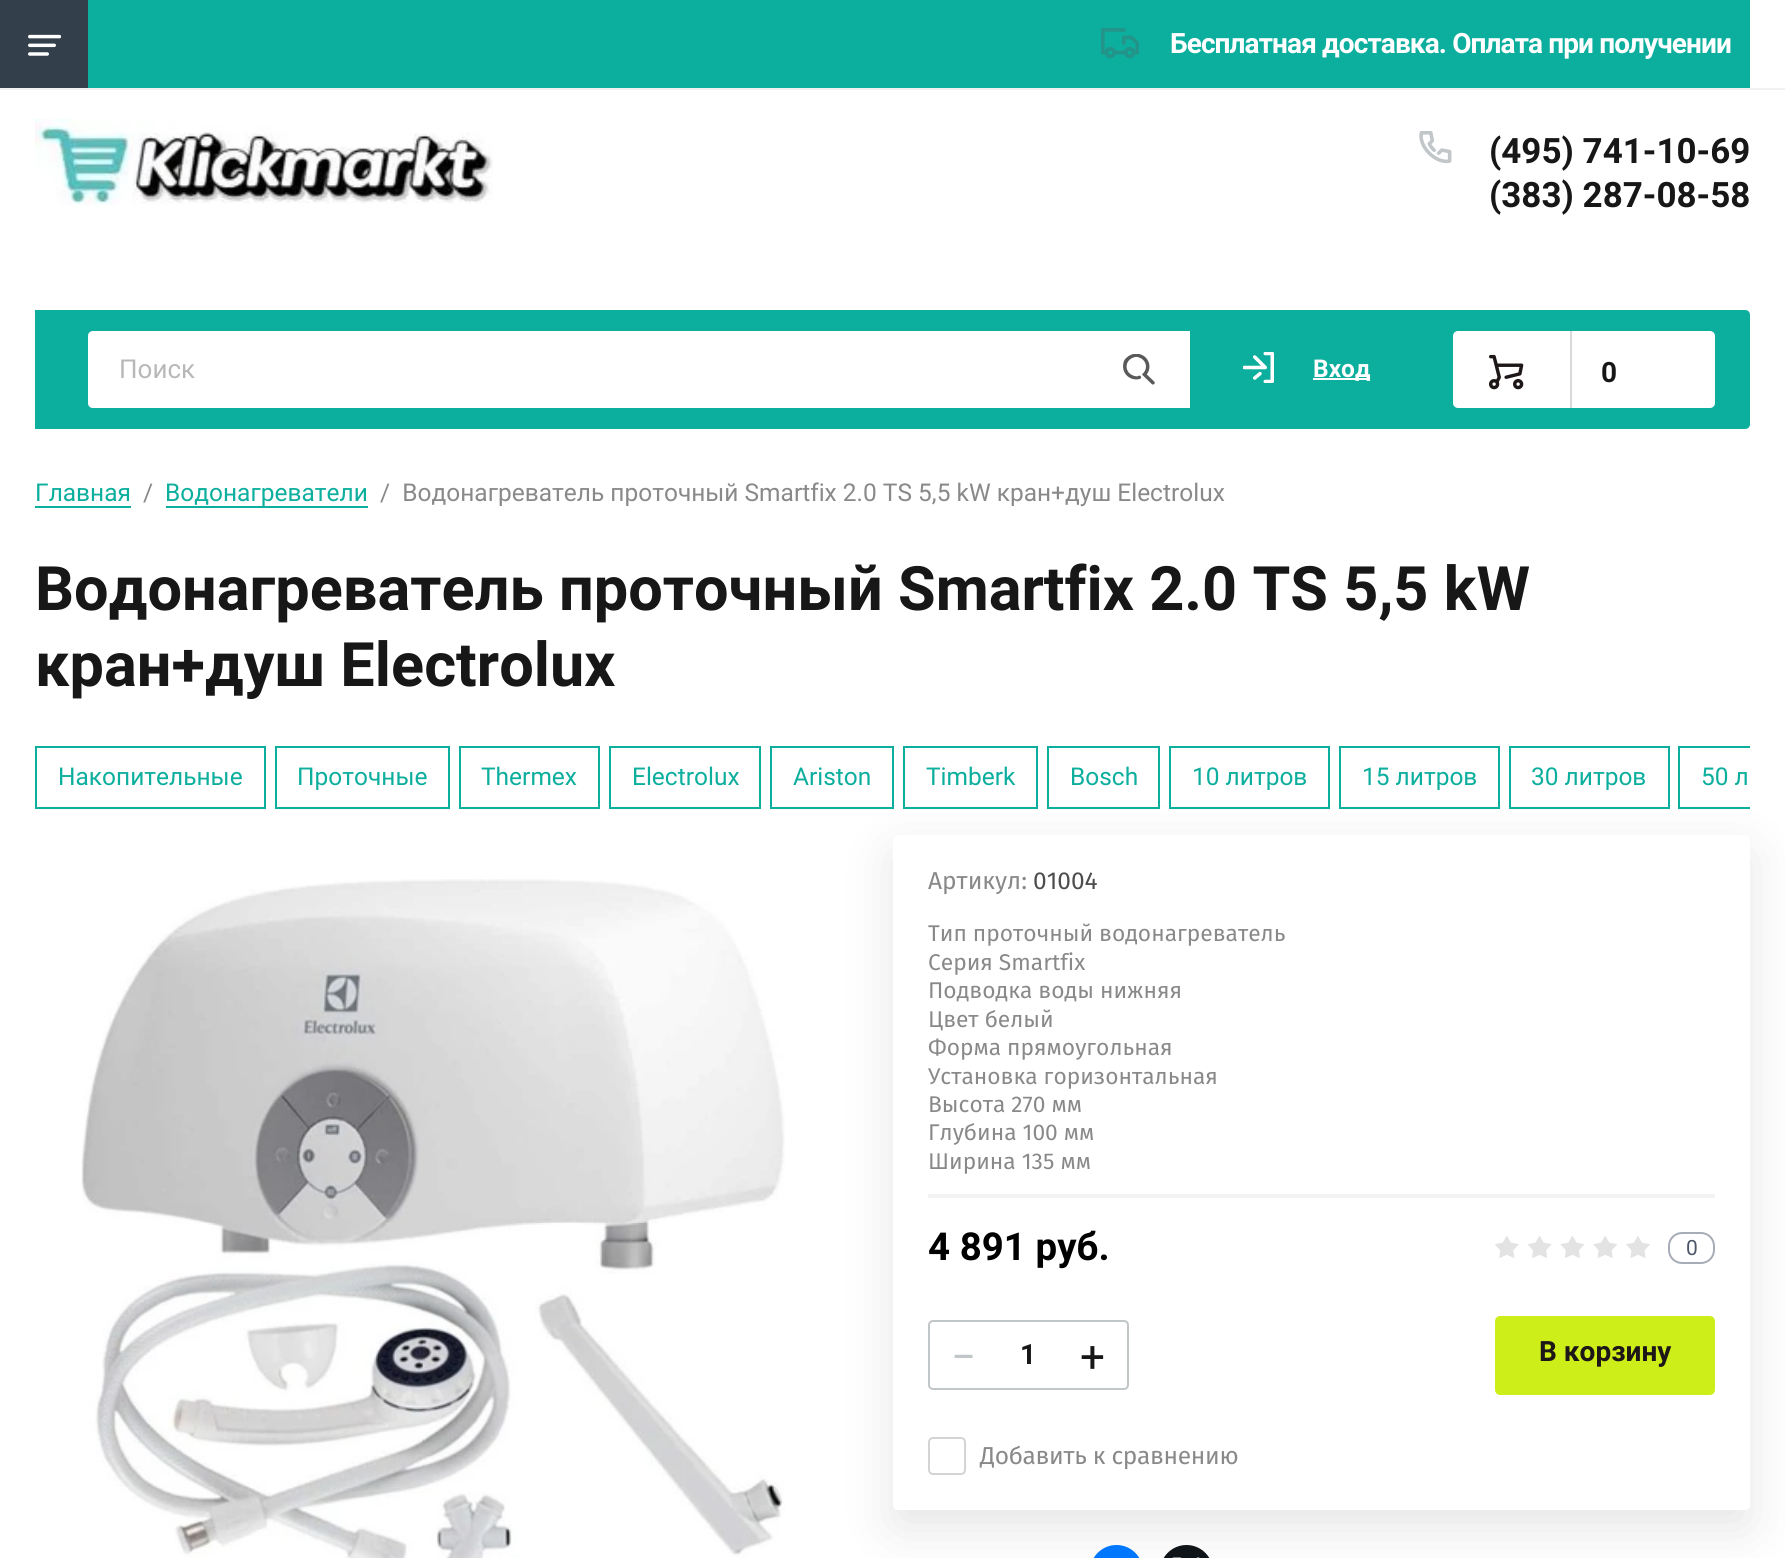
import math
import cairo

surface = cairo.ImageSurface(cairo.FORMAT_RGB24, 1785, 1558)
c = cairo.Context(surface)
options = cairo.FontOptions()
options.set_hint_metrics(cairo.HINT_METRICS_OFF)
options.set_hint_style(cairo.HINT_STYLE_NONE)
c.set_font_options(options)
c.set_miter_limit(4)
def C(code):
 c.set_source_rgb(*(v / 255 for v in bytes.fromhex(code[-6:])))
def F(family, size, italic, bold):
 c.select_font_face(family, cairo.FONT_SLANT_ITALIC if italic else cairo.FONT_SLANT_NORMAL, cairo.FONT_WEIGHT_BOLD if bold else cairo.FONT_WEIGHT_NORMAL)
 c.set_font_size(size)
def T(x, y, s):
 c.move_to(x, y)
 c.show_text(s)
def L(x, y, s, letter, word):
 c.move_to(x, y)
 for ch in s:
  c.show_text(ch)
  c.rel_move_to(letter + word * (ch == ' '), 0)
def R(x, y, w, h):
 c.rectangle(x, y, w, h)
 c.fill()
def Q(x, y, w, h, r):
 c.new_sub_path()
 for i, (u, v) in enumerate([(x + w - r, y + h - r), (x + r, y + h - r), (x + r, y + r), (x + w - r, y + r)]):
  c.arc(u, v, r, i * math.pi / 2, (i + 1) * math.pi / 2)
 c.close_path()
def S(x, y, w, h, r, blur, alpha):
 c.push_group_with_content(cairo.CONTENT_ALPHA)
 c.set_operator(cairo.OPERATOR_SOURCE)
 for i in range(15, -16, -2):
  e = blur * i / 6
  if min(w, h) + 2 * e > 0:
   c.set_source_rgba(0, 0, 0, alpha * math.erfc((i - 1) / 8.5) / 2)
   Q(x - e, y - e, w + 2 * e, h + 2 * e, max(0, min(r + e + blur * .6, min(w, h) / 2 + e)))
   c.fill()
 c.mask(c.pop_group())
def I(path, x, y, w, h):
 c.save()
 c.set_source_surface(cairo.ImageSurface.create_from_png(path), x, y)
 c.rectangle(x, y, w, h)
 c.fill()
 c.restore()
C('ffffff')
c.paint()
C('0cae9d')
R(88,0,1662,88)
C('33404b')
R(0,0,88,88)
I('1.png',28,34,33,22)
I('2.png',1101,28,38,30)
F('Roboto',28,0,1)
C('ffffff')
L(1170,53,'Бесплатная доставка. Оплата при получении',-.9,0)
C('f1f1f1')
R(0,88,1785,2)
I('3.png',35,119,458,87)
I('4.png',1419,131,33,33)
F('Roboto',35,0,1)
C('181717')
T(1489,163,'(495) 741-10-69')
T(1489,207,'(383) 287-08-58')
C('0cae9d')
c.new_path()
c.move_to(35,310)
c.line_to(1745,310)
c.curve_to(1748,310,1750,312,1750,315)
c.line_to(1750,424)
c.curve_to(1750,427,1748,429,1745,429)
c.line_to(35,429)
c.close_path()
c.fill()
C('ffffff')
c.new_path()
c.move_to(93,331)
c.line_to(1190,331)
c.line_to(1190,408)
c.line_to(93,408)
c.curve_to(90,408,88,406,88,403)
c.line_to(88,336)
c.curve_to(88,333,90,331,93,331)
c.close_path()
c.fill()
F('Roboto',26,0,0)
C('b8b8b8')
T(119,378,'Поиск')
I('5.png',1123,354,32,31)
I('6.png',1243,352,31,31)
C('ffffff')
R(1313,378,57,2)
F('Roboto',24.5,0,1)
T(1313,377,'Вход')
Q(1453,331,262,77,5)
c.fill()
I('7.png',1489,354,35,36)
C('d9d9d9')
R(1570,331,2,77)
F('Roboto',28,0,1)
C('181717')
T(1601,382,'0')
F('Roboto',24.5,0,0)
C('0cae9d')
T(35,501,'Главная')
R(35,506,96,2)
C('898989')
T(143,501,'/')
C('0cae9d')
T(165,501,'Водонагреватели')
R(166,506,202,2)
C('898989')
T(380,501,'/  Водонагреватель проточный Smartfix 2.0 TS 5,5 kW кран+душ Electrolux')
F('Roboto',61.25,0,1)
C('181717')
T(35,610,'Водонагреватель проточный Smartfix 2.0 TS 5,5 kW')
T(35,686,'кран+душ Electrolux')
c.rectangle(36,747,229,61)
C('0cae9d')
c.stroke()
F('Roboto',24.5,0,0)
T(58,785,'Накопительные')
c.rectangle(276,747,173,61)
c.stroke()
T(297,785,'Проточные')
c.rectangle(460,747,139,61)
c.stroke()
T(481,785,'Thermex')
c.rectangle(610,747,150,61)
c.stroke()
T(632,785,'Electrolux')
C('000000')
S(893,852,857,676,5,25.5,.1)
c.rectangle(771,747,122,61)
C('0cae9d')
c.stroke()
T(793,785,'Ariston')
c.rectangle(904,747,133,61)
c.stroke()
T(926,785,'Timberk')
c.rectangle(1048,747,111,61)
c.stroke()
T(1070,785,'Bosch')
c.rectangle(1170,747,159,61)
c.stroke()
T(1192,785,'10 литров')
c.rectangle(1340,747,159,61)
c.stroke()
T(1362,785,'15 литров')
c.rectangle(1510,747,159,61)
c.stroke()
T(1531,785,'30 литров')
c.save()
c.rectangle(35,746,1715,71)
c.clip()
c.rectangle(1679,747,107,61)
c.stroke()
c.restore()
T(1701,785,'50 л')
I('8.png',81,879,704,679)
C('ffffff')
Q(893,835,857,675,5)
c.fill()
F('Fira Sans',24.5,0,0)
C('898989')
T(928,889,'Артикул:')
C('4d4d4d')
T(1033,889,'01004')
F('Fira Sans',22.75,0,0)
C('898989')
T(928,941,'Тип проточный водонагреватель')
T(928,970,'Серия Smartfix')
T(928,998,'Подводка воды нижняя')
T(928,1027,'Цвет белый')
T(928,1055,'Форма прямоугольная')
T(928,1084,'Установка горизонтальная')
T(928,1112,'Высота 270 мм')
T(928,1140,'Глубина 100 мм')
T(928,1169,'Ширина 135 мм')
C('f3f3f3')
R(928,1194,787,4)
F('Roboto',38.5,0,1)
C('000000')
T(928,1260,'4 891 руб.')
I('9.png',1495,1236,155,22)
Q(1669,1233,45,30,13)
C('a7adb6')
c.stroke()
F('Roboto',21,0,0)
C('4c5667')
T(1686,1255,'0')
Q(929,1321,199,68,4)
C('c1c6c8')
c.stroke()
F('Roboto',44,0,0)
T(951,1372,'−')
F('Roboto',28,0,1)
C('181717')
T(1020,1364,'1')
F('Roboto',44,0,0)
T(1080,1372,'+')
C('cdee18')
Q(1497,1318,216,75,3)
c.fill_preserve()
c.set_line_width(4)
c.stroke()
F('Roboto',28,0,1)
C('1e1717')
T(1539,1361,'В корзину')
Q(929,1438,36,36,4)
C('d4d4d4')
c.set_line_width(2)
c.stroke()
F('Fira Sans',24.5,0,0)
C('898989')
L(980,1464,'Добавить к сравнению',-.3,0)
C('0077ff')
Q(1090,1545,53,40,26.5)
c.fill()
C('0f1419')
Q(1160,1545,53,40,26.5)
c.fill()
I('10.png',1172,1557,28,1)
surface.write_to_png('o.png')
